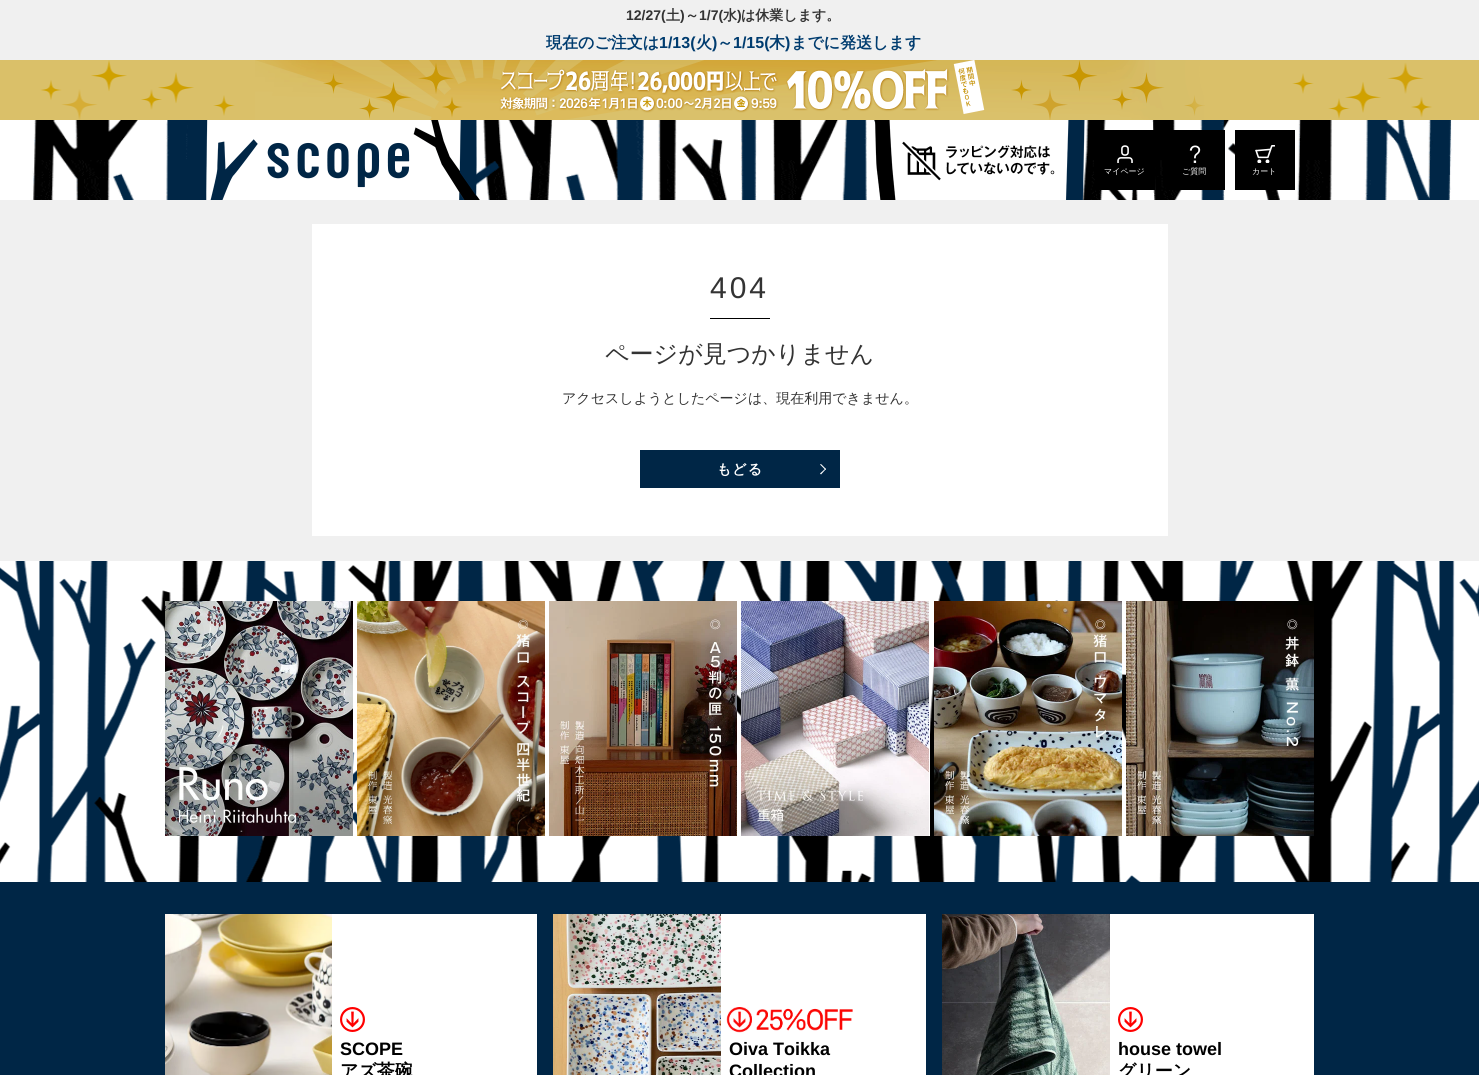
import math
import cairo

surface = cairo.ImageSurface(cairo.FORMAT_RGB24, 1479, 1075)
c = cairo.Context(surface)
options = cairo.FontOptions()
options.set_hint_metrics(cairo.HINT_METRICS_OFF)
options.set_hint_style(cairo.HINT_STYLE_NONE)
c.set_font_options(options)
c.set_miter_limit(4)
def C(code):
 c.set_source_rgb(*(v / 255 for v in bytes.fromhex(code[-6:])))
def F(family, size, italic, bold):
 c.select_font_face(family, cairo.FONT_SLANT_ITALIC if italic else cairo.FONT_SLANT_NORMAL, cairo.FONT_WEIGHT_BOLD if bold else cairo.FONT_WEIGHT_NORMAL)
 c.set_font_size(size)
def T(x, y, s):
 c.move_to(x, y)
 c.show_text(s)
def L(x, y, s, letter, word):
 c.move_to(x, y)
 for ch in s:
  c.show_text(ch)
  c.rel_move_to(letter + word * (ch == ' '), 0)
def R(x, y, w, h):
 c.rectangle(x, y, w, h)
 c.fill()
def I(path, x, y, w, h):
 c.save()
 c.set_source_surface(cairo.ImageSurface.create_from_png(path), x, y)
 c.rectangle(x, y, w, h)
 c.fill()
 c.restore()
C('f0f0f0')
c.paint()
F('Liberation Sans',14,0,1)
C('333333')
T(626,20,'12/27(')
F('WenQuanYi Zen Hei',14,0,1)
T(666,20,'土')
F('Liberation Sans',14,0,1)
T(680,20,')')
F('WenQuanYi Zen Hei',14,0,1)
T(685,20,'～')
F('Liberation Sans',14,0,1)
T(699,20,'1/7(')
F('WenQuanYi Zen Hei',14,0,1)
T(723,20,'水')
F('Liberation Sans',14,0,1)
T(737,20,')')
F('WenQuanYi Zen Hei',14,0,1)
T(741,20,'は休業します。')
F('WenQuanYi Zen Hei',16,0,1)
C('003c6f')
T(546,48,'現在のご注文は')
F('Liberation Sans',16,0,1)
T(659,48,'1/13(')
F('WenQuanYi Zen Hei',16,0,1)
T(696,48,'火')
F('Liberation Sans',16,0,1)
T(712,48,')')
F('WenQuanYi Zen Hei',16,0,1)
T(717,48,'～')
F('Liberation Sans',16,0,1)
T(733,48,'1/15(')
F('WenQuanYi Zen Hei',16,0,1)
T(769,48,'木')
F('Liberation Sans',16,0,1)
T(785,48,')')
F('WenQuanYi Zen Hei',16,0,1)
T(791,48,'までに発送します')
I('1.png',0,60,1479,60)
I('2.png',255,60,949,60)
I('3.png',0,120,1479,80)
I('4.png',187,120,293,80)
I('5.png',875,120,210,80)
C('000000')
R(1095,130,60,60)
I('6.png',1117,145,16,18)
F('WenQuanYi Zen Hei Medium',8,0,0)
C('ffffff')
T(1104,174,'マイページ')
C('000000')
R(1166,130,59,60)
I('7.png',1189,145,12,18)
C('ffffff')
T(1182,174,'ご質問')
C('000000')
R(1235,130,60,60)
I('8.png',1255,145,20,18)
C('ffffff')
T(1252,174,'カート')
R(312,224,856,312)
C('000000')
R(710,318,60,1)
F('Liberation Sans',30,0,0)
C('333333')
L(710,298,'404',3,0)
F('WenQuanYi Zen Hei Medium',24,0,0)
T(605,362,'ページが見つかりません')
F('WenQuanYi Zen Hei Medium',14,0,0)
T(562,403,'アクセスしようとしたページは、現在利用できません。')
C('002646')
R(640,450,200,38)
F('WenQuanYi Zen Hei',14,0,1)
C('ffffff')
L(717,474,'もどる',1,0)
c.new_path()
c.move_to(821,464)
c.line_to(826,469)
c.line_to(825.5,470)
c.line_to(820,464.5)
c.close_path()
c.fill()
c.new_path()
c.move_to(825.5,468.5)
c.line_to(826,469)
c.line_to(821,474.5)
c.line_to(820,473.5)
c.close_path()
c.fill()
C('002646')
R(0,882,1479,193)
I('9.png',0,561,1479,321)
I('10.png',165,601,188,235)
I('11.png',357,601,188,235)
I('12.png',549,601,188,235)
C('ffffff')
R(929,717,1,119)
I('13.png',741,601,188,235)
I('14.png',934,601,188,235)
I('15.png',1126,601,188,235)
R(332,914,205,161)
I('16.png',165,914,167,161)
I('17.png',340,1007,25,25)
F('Liberation Sans',18,0,1)
C('000000')
T(340,1055,'SCOPE')
F('WenQuanYi Zen Hei',18,0,1)
T(340,1077,'アズ茶碗')
C('ffffff')
R(721,914,205,161)
I('18.png',553,914,168,161)
I('19.png',726,1007,127,26)
F('Liberation Sans',18,0,1)
C('000000')
T(729,1055,'Oiva Toikka')
T(729,1077,'Collection')
C('ffffff')
R(1110,914,204,161)
I('20.png',942,914,168,161)
I('17.png',1118,1007,25,25)
C('000000')
T(1118,1055,'house towel')
F('WenQuanYi Zen Hei',18,0,1)
T(1118,1077,'グリーン')
surface.write_to_png('o.png')
